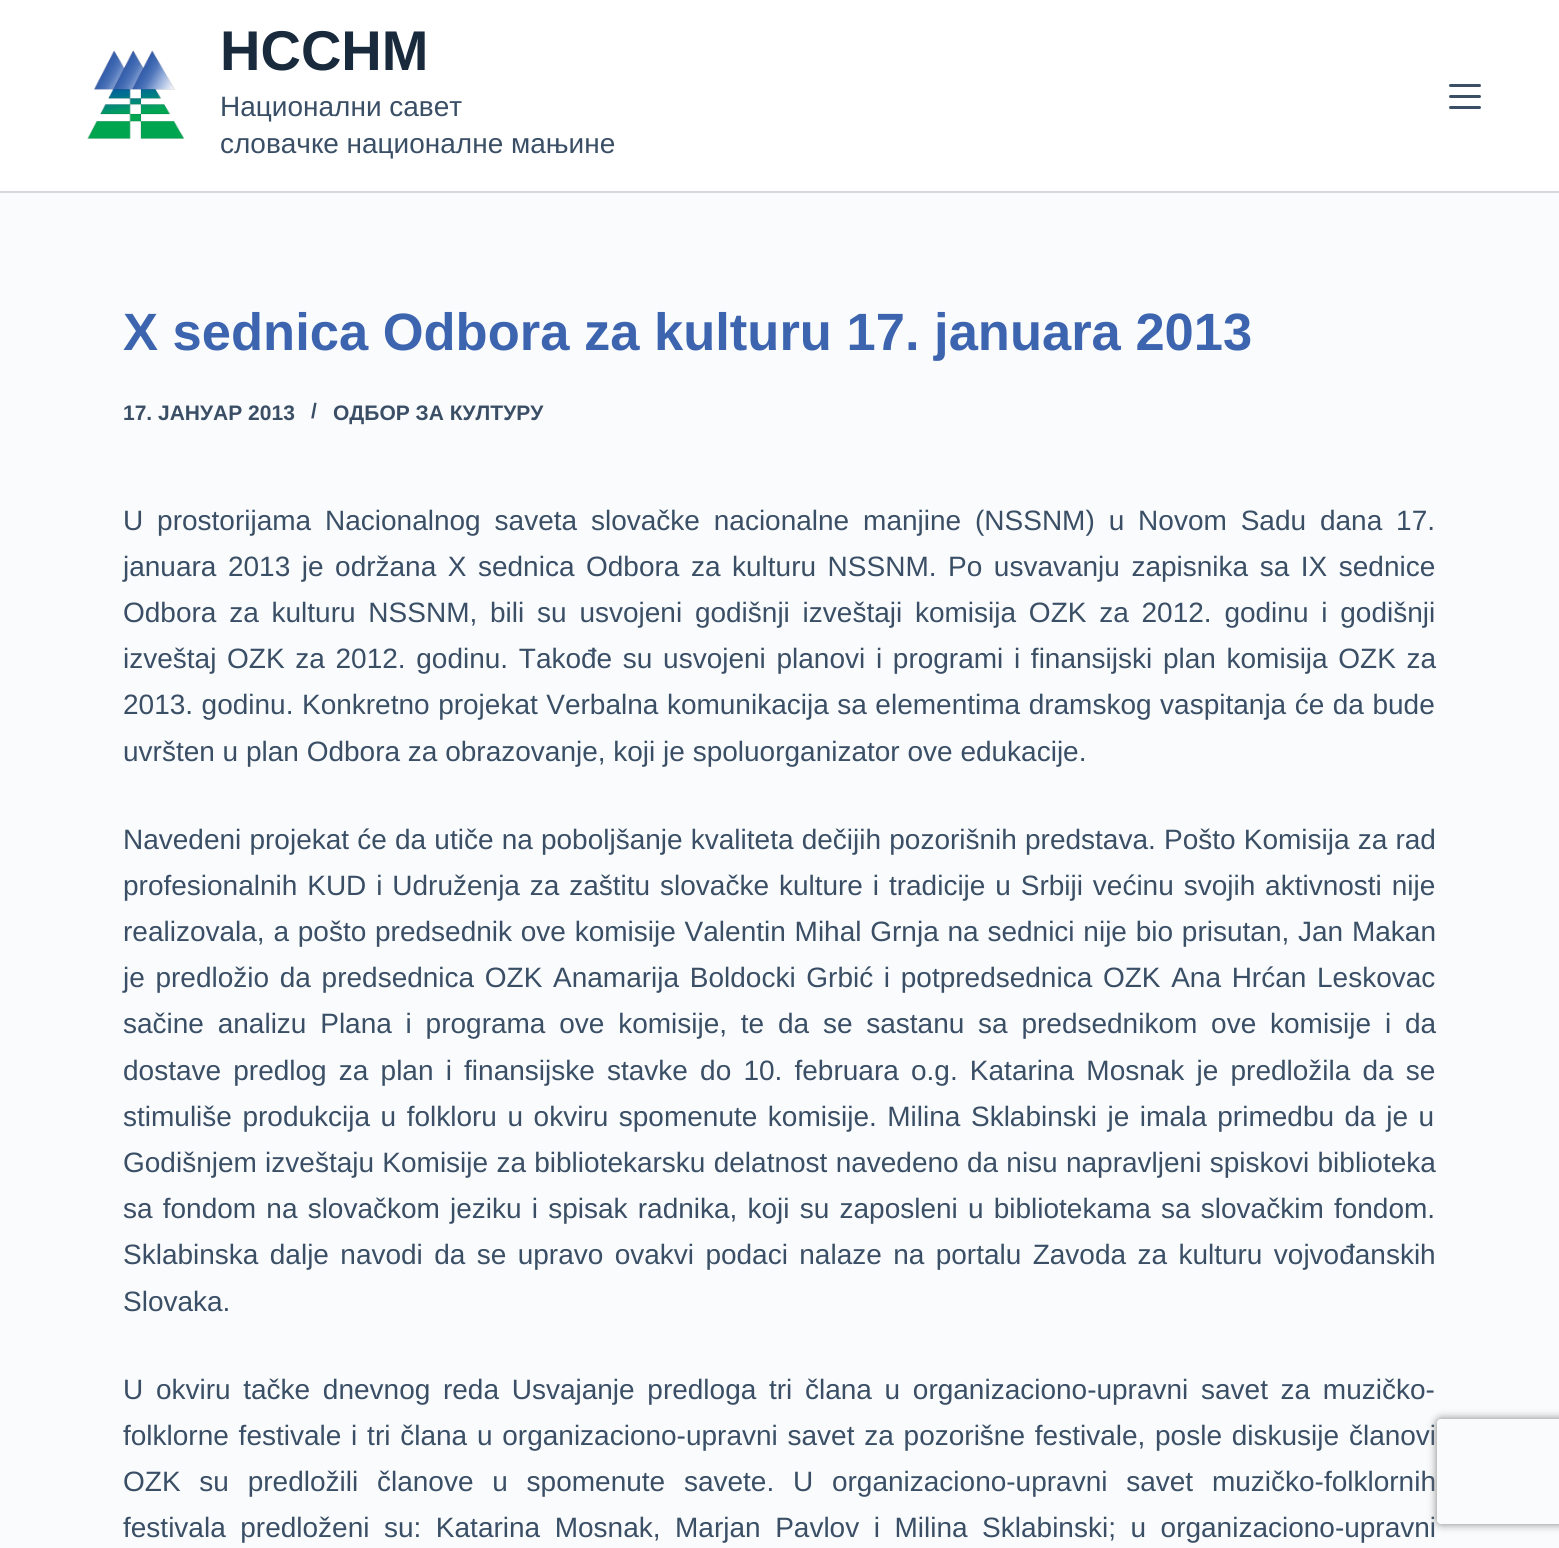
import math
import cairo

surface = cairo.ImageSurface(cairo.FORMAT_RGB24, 1559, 1548)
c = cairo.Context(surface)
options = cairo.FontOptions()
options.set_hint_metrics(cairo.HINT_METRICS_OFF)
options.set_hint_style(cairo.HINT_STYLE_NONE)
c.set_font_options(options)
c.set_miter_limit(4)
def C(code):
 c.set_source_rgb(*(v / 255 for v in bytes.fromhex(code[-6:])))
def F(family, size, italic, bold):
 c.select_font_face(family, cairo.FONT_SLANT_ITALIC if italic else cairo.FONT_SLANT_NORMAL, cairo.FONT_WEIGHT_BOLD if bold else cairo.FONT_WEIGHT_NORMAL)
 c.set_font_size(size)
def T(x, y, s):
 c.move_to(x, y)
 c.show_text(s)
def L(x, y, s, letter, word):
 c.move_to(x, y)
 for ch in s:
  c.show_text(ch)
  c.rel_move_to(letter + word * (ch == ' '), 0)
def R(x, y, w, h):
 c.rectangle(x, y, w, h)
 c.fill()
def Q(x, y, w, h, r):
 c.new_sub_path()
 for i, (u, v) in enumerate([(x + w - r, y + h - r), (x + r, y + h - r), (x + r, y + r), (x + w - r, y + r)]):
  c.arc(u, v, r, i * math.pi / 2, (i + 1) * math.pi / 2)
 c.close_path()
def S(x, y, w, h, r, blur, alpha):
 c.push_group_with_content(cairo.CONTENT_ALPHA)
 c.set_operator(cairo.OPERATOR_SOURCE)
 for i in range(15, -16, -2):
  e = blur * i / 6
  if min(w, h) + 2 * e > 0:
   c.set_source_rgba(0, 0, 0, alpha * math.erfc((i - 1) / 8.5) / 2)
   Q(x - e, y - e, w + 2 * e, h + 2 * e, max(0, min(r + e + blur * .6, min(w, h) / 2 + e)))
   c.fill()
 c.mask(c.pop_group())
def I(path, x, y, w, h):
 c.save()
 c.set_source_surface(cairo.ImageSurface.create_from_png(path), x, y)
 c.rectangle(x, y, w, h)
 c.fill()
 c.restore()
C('fafbfc')
c.paint()
C('ffffff')
R(0,0,1559,191)
C('d5d8dc')
R(0,191,1559,2)
I('1.png',87,50,98,89)
F('Liberation Sans',56,0,1)
C('192a3d')
T(220,70,'НССНМ')
F('Liberation Sans',28,0,0)
C('3a4f66')
T(220,116,'Национални савет')
T(220,153,'словачке националне мањине')
Q(1449,84,32,3,1.5)
c.fill()
Q(1449,95,32,3,1.5)
c.fill()
Q(1449,106,32,3,1.5)
c.fill()
F('Liberation Sans',52.5,0,1)
C('3c64af')
T(123,350,'X sednica Odbora za kulturu 17. januara 2013')
F('Liberation Sans',21,0,1)
C('3a4f66')
T(123,420,'17. ЈАНУАР 2013')
T(311,418,'/')
T(333,420,'ОДБОР ЗА КУЛТУРУ')
F('Liberation Sans',28,0,0)
L(123,530,'U prostorijama Nacionalnog saveta slovačke nacionalne manjine (NSSNM) u Novom Sadu dana 17.',0,6.1)
L(123,576,'januara 2013 je održana X sednica Odbora za kulturu NSSNM. Po usvavanju zapisnika sa IX sednice',0,3.75)
L(123,622,'Odbora za kulturu NSSNM, bili su usvojeni godišnji izveštaji komisija OZK za 2012. godinu i godišnji',0,5)
L(123,668,'izveštaj OZK za 2012. godinu. Takođe su usvojeni planovi i programi i finansijski plan komisija OZK za',0,2.9)
L(123,714,'2013. godinu. Konkretno projekat Verbalna komunikacija sa elementima dramskog vaspitanja će da bude',0,.75)
T(123,761,'uvršten u plan Odbora za obrazovanje, koji je spoluorganizator ove edukacije.')
L(123,849,'Navedeni projekat će da utiče na poboljšanje kvaliteta dečijih pozorišnih predstava. Pošto Komisija za rad',0,.4)
L(123,895,'profesionalnih KUD i Udruženja za zaštitu slovačke kulture i tradicije u Srbiji većinu svojih aktivnosti nije',0,2.1)
L(123,941,'realizovala, a pošto predsednik ove komisije Valentin Mihal Grnja na sednici nije bio prisutan, Jan Makan',0,1)
L(123,987,'je predložio da predsednica OZK Anamarija Boldocki Grbić i potpredsednica OZK Ana Hrćan Leskovac',0,2.9)
L(123,1033,'sačine analizu Plana i programa ove komisije, te da se sastanu sa predsednikom ove komisije i da',0,6)
L(123,1080,'dostave predlog za plan i finansijske stavke do 10. februara o.g. Katarina Mosnak je predložila da se',0,4.4)
L(123,1126,'stimuliše produkcija u folkloru u okviru spomenute komisije. Milina Sklabinski je imala primedbu da je u',0,2.75)
L(123,1172,'Godišnjem izveštaju Komisije za bibliotekarsku delatnost navedeno da nisu napravljeni spiskovi biblioteka',0,.5)
L(123,1218,'sa fondom na slovačkom jeziku i spisak radnika, koji su zaposleni u bibliotekama sa slovačkim fondom.',0,2.4)
L(123,1264,'Sklabinska dalje navodi da se upravo ovakvi podaci nalaze na portalu Zavoda za kulturu vojvođanskih',0,3.6)
T(123,1311,'Slovaka.')
L(123,1399,'U okviru tačke dnevnog reda Usvajanje predloga tri člana u organizaciono-upravni savet za muzičko-',0,4.9)
L(123,1445,'folklorne festivale i tri člana u organizaciono-upravni savet za pozorišne festivale, posle diskusije članovi',0,2)
L(123,1491,'OZK su predložili članove u spomenute savete. U organizaciono-upravni savet muzičko-folklornih',0,11)
L(123,1537,'festivala predloženi su: Katarina Mosnak, Marjan Pavlov i Milina Sklabinski; u organizaciono-upravni',0,6.75)
c.save()
c.set_fill_rule(cairo.FILL_RULE_EVEN_ODD)
c.new_path()
c.move_to(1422,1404)
c.line_to(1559,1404)
c.line_to(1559,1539)
c.line_to(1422,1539)
c.close_path()
c.move_to(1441,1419)
c.line_to(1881,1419)
c.curve_to(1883,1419,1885,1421,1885,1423)
c.line_to(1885,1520)
c.curve_to(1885,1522,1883,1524,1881,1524)
c.line_to(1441,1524)
c.curve_to(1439,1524,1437,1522,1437,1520)
c.line_to(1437,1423)
c.curve_to(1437,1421,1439,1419,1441,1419)
c.close_path()
c.clip()
C('808080')
S(1437,1419,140,105,4,4.5,1)
c.restore()
surface.write_to_png('o.png')
